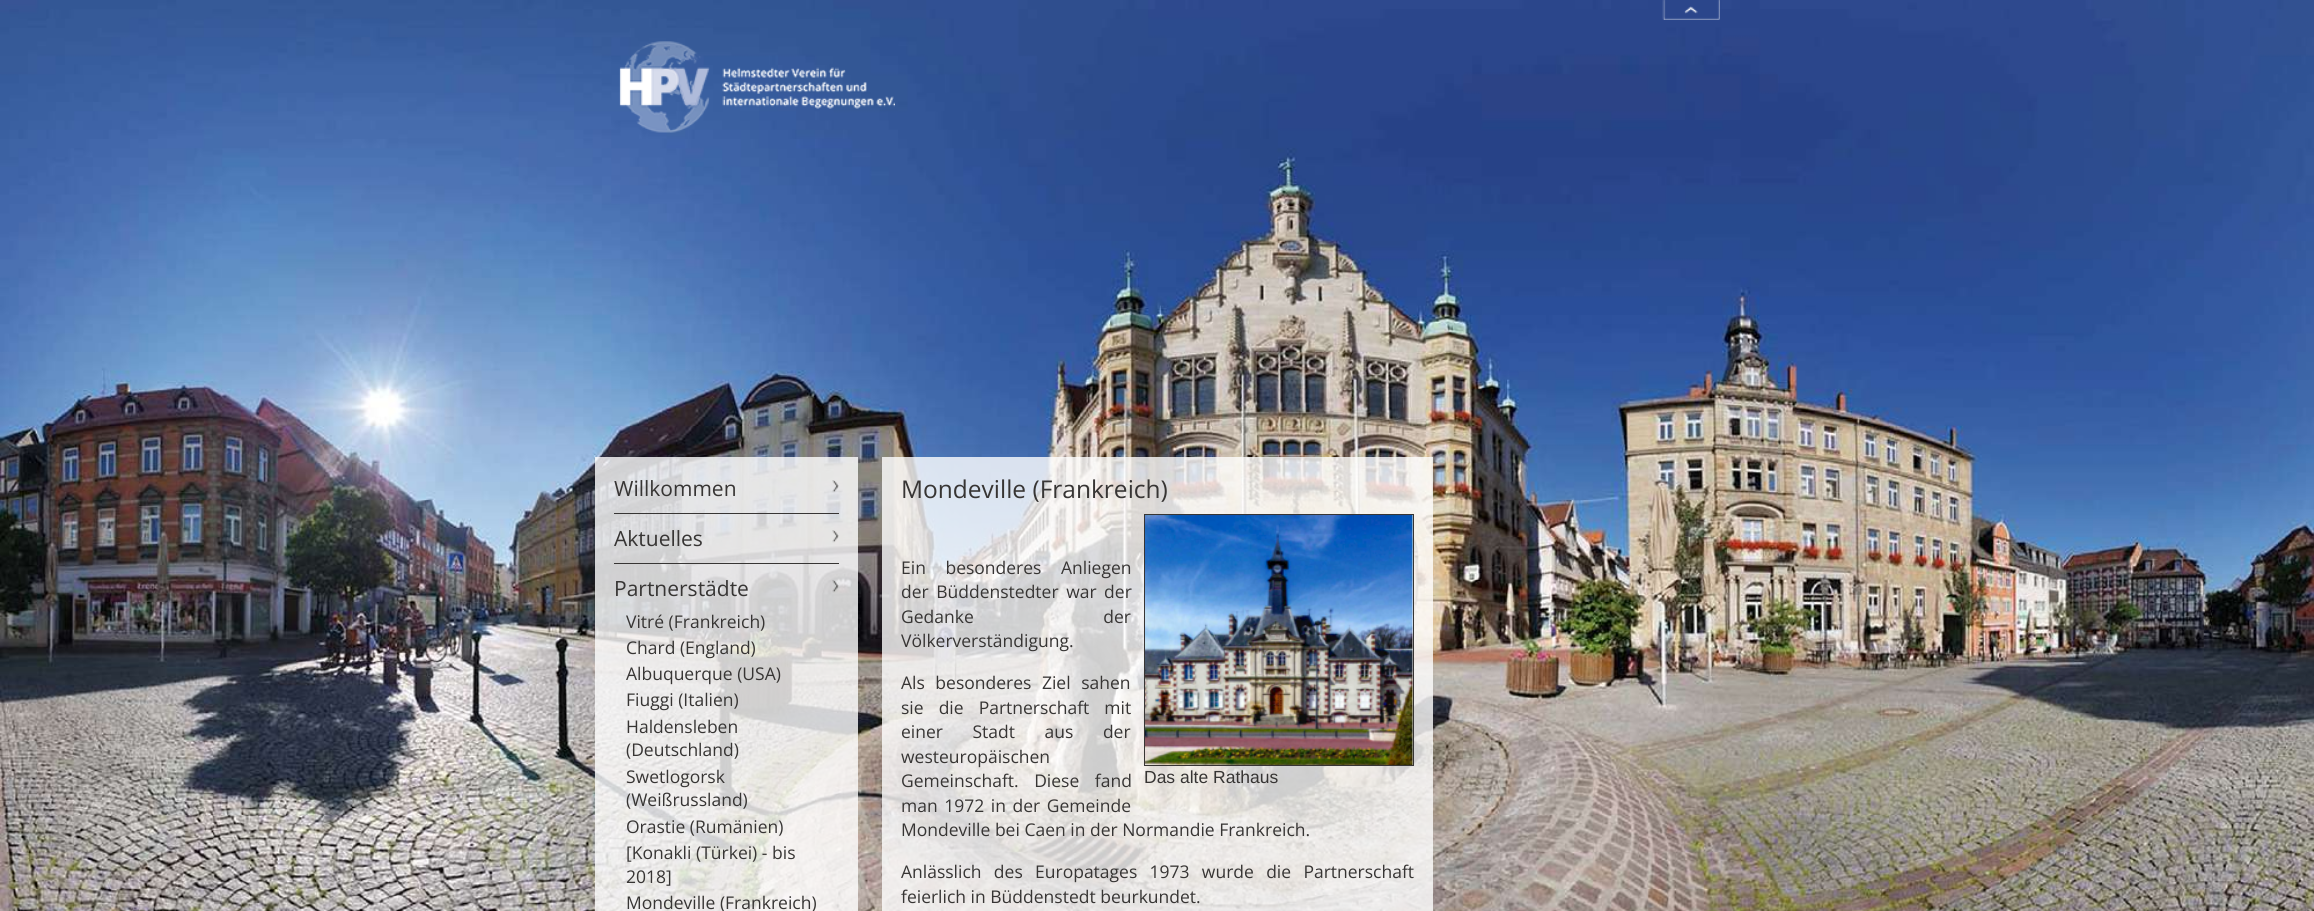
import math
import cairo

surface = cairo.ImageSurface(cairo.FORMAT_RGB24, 2314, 911)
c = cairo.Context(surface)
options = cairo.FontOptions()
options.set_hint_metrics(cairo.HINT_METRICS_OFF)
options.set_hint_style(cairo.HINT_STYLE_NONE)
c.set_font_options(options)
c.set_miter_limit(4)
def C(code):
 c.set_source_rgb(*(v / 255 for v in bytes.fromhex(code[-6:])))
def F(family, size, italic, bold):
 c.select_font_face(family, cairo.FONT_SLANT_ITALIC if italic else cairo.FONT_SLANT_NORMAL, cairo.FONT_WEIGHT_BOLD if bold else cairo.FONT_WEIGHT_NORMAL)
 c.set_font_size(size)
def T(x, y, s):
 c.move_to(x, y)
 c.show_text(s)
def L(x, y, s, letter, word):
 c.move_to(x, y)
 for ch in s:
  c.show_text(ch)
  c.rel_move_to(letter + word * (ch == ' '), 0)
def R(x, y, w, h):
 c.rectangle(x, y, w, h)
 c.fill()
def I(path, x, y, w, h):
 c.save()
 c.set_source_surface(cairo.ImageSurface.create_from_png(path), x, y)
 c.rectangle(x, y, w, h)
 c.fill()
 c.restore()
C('ffffff')
c.paint()
I('1.png',0,0,2314,911)
I('2.png',1662,0,58,20)
I('3.png',619,41,276,92)
c.set_source_rgba(1,1,1,0.8)
R(595,457,263,454)
I('4.png',832,480,7,13)
C('373534')
R(614,513,225,1)
F('Open Sans',21,0,0)
T(614,496,'Willkommen')
I('5.png',832,530,7,13)
R(614,563,225,1)
T(614,546,'Aktuelles')
I('6.png',832,580,7,13)
T(614,596,'Partnerstädte')
F('Open Sans',17.5,0,0)
T(626,628,'Vitré (Frankreich)')
T(626,654,'Chard (England)')
T(626,680,'Albuquerque (USA)')
T(626,706,'Fiuggi (Italien)')
T(626,733,'Haldensleben')
T(626,756,'(Deutschland)')
T(626,783,'Swetlogorsk')
T(626,806,'(Weißrussland)')
T(626,833,'Orastie (Rumänien)')
T(626,859,'[Konakli (Türkei) - bis')
T(626,883,'2018]')
T(626,909,'Mondeville (Frankreich)')
c.set_source_rgba(1,1,1,0.8)
R(882,457,551,454)
F('Open Sans',24.5,0,0)
C('373534')
T(901,498,'Mondeville (Frankreich)')
F('Open Sans',17.5,0,0)
L(901,574,'Ein besonderes Anliegen',0,15)
L(901,598,'der Büddenstedter war der',0,3)
L(901,623,'Gedanke der',0,125)
T(901,647,'Völkerverständigung.')
L(901,689,'Als besonderes Ziel sahen',0,6)
L(901,714,'sie die Partnerschaft mit',0,10.5)
L(901,738,'einer Stadt aus der',0,25)
T(901,763,'westeuropäischen')
L(901,787,'Gemeinschaft. Diese fand',0,11)
L(901,812,'man 1972 in der Gemeinde',0,2)
T(901,836,'Mondeville bei Caen in der Normandie Frankreich.')
L(901,878,'Anlässlich des Europatages 1973 wurde die Partnerschaft',0,7.75)
T(901,903,'feierlich in Büddenstedt beurkundet.')
c.rectangle(1144.5,514.5,269,251)
c.set_line_width(1)
c.stroke()
I('7.png',1145,515,268,250)
F('Liberation Sans',17.5,0,0)
T(1144,783,'Das alte Rathaus')
surface.write_to_png('o.png')
